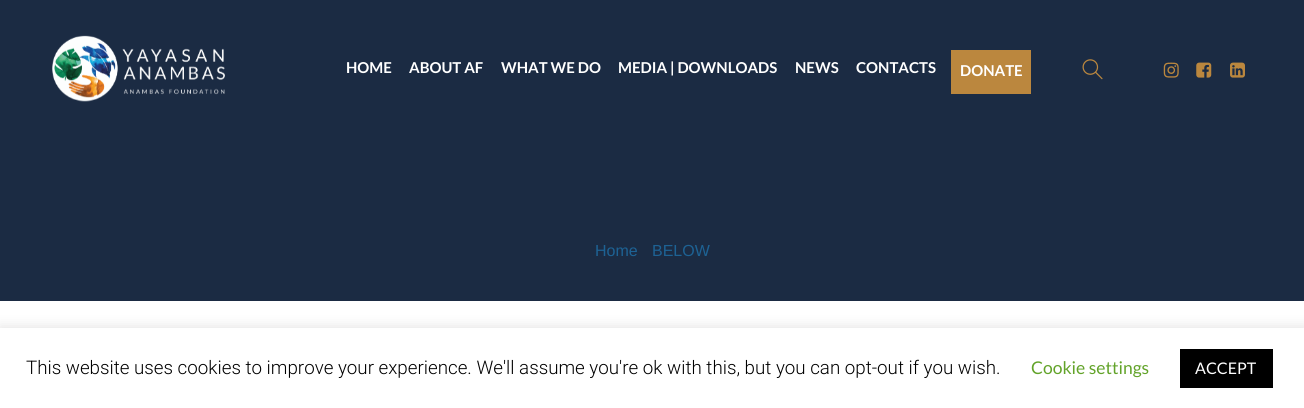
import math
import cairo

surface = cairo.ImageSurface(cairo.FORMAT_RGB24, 1304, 408)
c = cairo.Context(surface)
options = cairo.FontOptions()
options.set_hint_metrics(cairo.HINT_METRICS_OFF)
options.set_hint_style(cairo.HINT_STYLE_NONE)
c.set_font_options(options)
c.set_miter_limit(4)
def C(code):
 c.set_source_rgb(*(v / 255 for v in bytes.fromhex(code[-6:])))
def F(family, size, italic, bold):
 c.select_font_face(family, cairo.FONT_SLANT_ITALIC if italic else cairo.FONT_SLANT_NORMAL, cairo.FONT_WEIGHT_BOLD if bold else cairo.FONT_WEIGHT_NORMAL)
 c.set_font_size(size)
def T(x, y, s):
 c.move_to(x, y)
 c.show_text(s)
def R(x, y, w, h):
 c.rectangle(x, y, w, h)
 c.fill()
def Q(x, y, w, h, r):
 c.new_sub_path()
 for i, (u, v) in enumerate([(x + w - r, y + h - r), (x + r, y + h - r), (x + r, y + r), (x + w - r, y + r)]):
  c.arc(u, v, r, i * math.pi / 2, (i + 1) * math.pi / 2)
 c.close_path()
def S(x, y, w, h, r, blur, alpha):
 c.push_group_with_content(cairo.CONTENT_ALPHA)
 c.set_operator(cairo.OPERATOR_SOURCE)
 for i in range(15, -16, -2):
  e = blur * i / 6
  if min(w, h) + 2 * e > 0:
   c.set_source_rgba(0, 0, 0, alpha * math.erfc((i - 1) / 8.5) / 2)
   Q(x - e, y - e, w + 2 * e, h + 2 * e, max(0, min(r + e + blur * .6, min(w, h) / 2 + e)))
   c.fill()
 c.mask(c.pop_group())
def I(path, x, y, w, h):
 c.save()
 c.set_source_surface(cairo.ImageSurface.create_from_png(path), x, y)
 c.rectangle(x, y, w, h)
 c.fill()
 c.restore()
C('ffffff')
c.paint()
C('1b2b43')
R(0,0,1304,301)
I('1.png',52,35,173,67)
F('Lato',15,0,1)
C('ffffff')
T(346,73,'HOME')
T(409,73,'ABOUT AF')
T(501,73,'WHAT WE DO')
T(618,73,'MEDIA | DOWNLOADS')
T(795,73,'NEWS')
T(856,73,'CONTACTS')
C('bb873e')
R(951,50,80,44)
C('ffffff')
T(960,76,'DONATE')
I('2.png',1082,59,21,21)
I('3.png',1163,62,16,16)
I('4.png',1196,62,16,16)
I('5.png',1230,62,15,16)
F('Liberation Sans',16,0,0)
C('1d6294')
T(595,256,'Home')
T(652,256,'BELOW')
C('acabab')
S(0,326,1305,82,0,6,.3)
C('ffffff')
R(0,328,1304,80)
F('Roboto Light',18.75,0,0)
C('000000')
T(26,374,'This website uses cookies to improve your experience. We\'ll assume you\'re ok with this, but you can opt-out if you wish.')
F('Lato',17.5,0,0)
C('62a329')
T(1031,374,'Cookie settings')
C('000000')
R(1180,349,93,39)
F('Lato',16,0,0)
C('ffffff')
T(1195,374,'ACCEPT')
surface.write_to_png('o.png')
